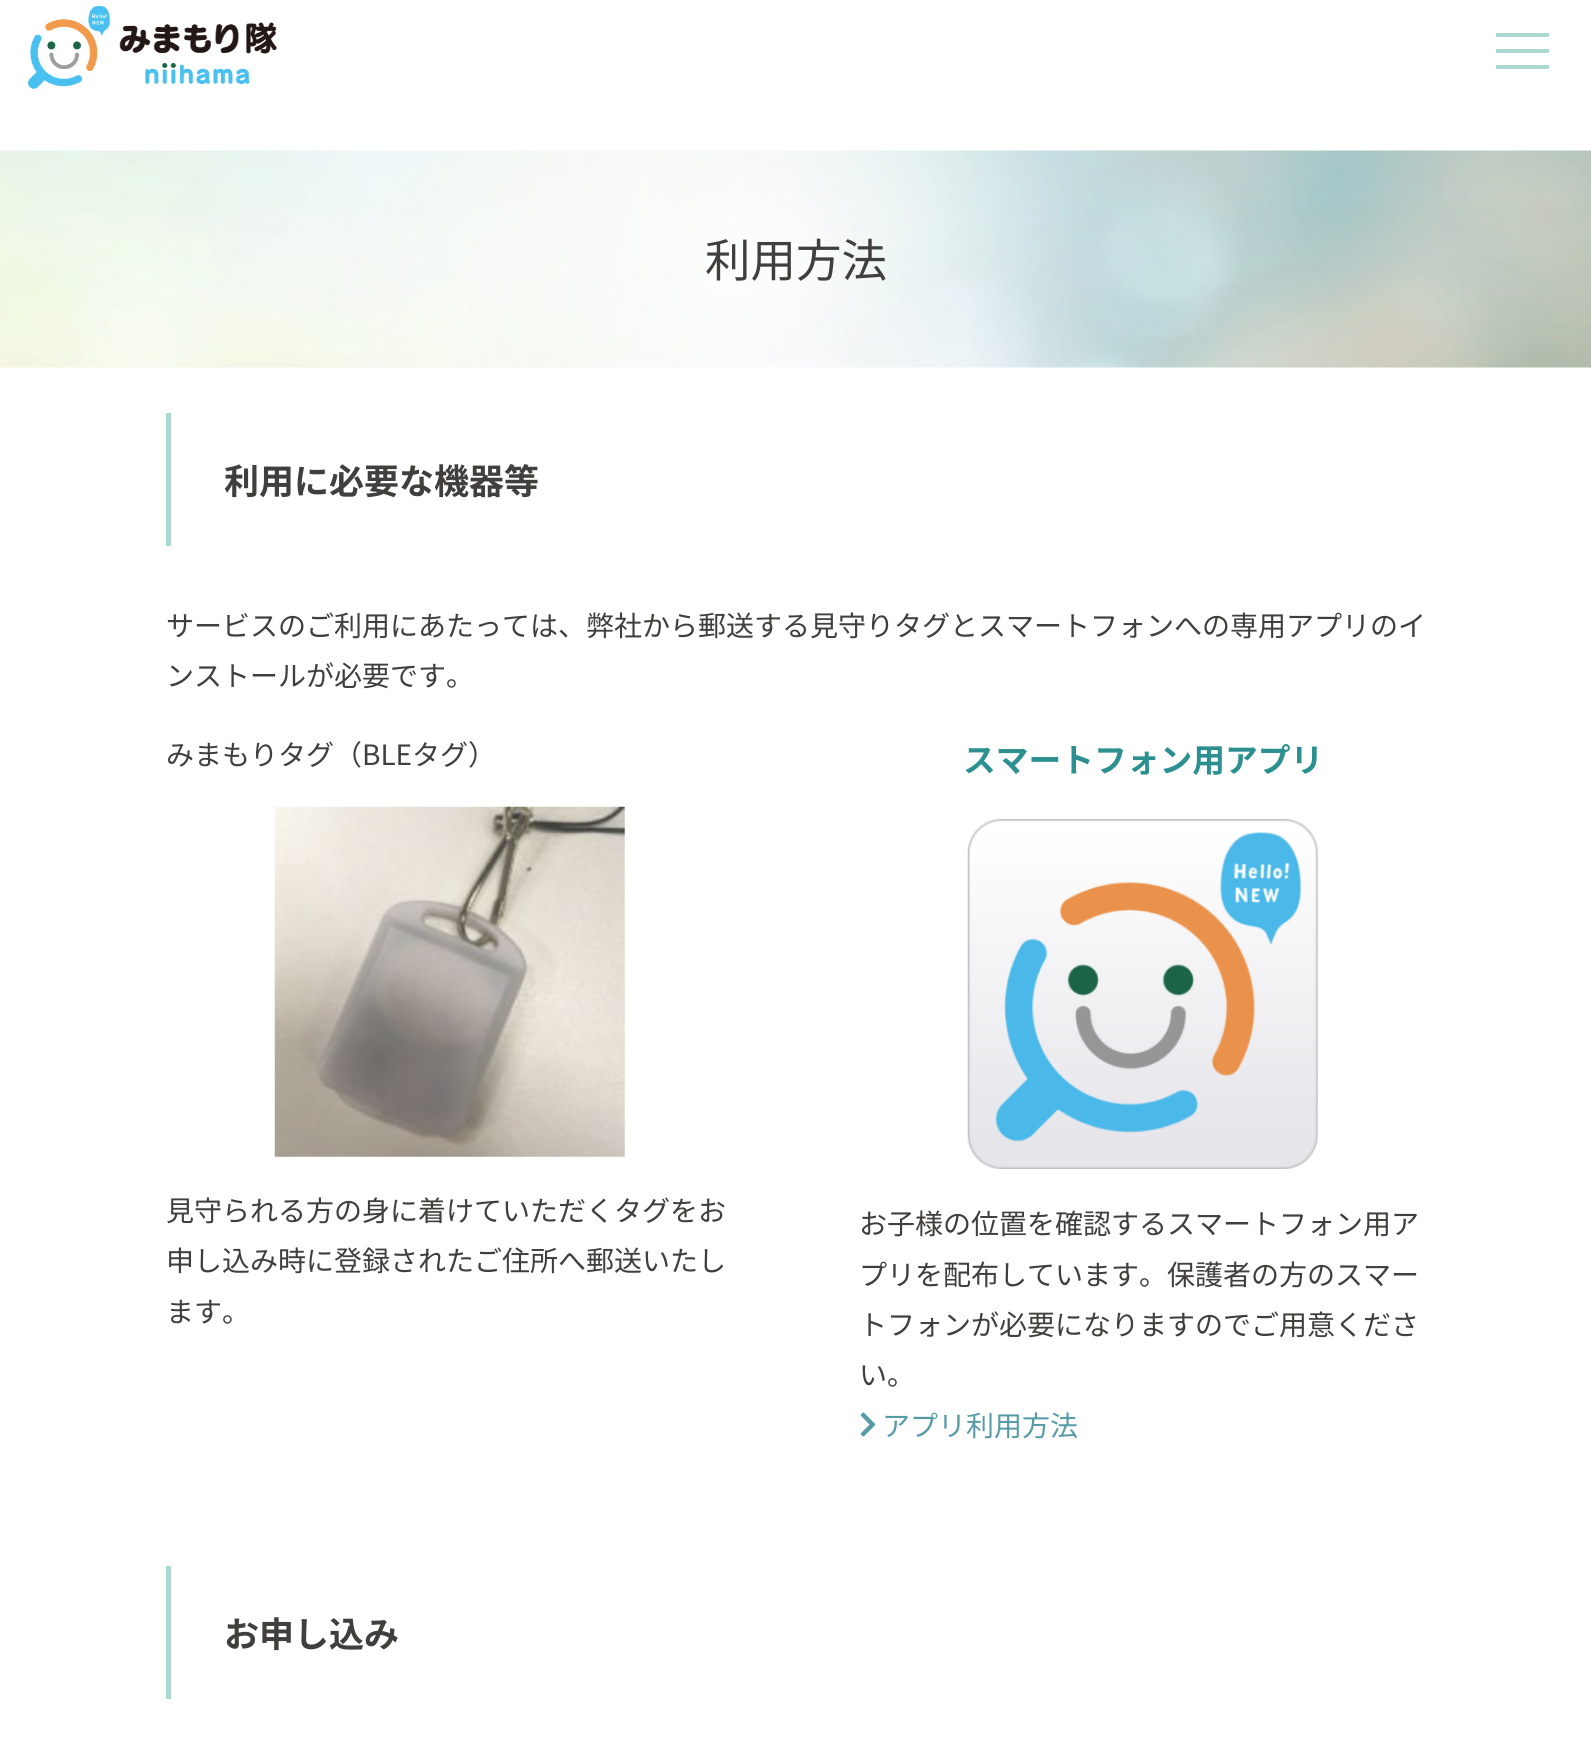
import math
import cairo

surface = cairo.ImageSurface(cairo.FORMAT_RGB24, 1591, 1760)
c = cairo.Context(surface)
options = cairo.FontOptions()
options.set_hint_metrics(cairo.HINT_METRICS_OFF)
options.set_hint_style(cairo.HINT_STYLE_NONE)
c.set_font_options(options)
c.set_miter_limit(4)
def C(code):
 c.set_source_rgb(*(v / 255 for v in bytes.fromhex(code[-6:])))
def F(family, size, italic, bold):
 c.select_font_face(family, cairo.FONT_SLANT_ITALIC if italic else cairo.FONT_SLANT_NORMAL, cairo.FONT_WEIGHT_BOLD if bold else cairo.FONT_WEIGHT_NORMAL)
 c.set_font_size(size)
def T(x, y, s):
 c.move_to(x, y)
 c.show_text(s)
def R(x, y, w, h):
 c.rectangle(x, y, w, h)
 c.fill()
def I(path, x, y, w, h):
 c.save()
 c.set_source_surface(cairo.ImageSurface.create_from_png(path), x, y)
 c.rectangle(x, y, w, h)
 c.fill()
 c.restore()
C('ffffff')
c.paint()
I('1.png',28,6,249,83)
C('abd8d3')
R(1496,33,53,4)
R(1496,65,53,4)
R(1496,49,53,4)
I('2.png',0,150,1591,218)
F('Noto Sans JP',45.5,0,0)
C('413f3d')
T(705,277,'利用方法')
C('abd8d3')
R(166,413,5,133)
F('Noto Sans JP',35,0,1)
C('413f3d')
T(224,494,'利用に必要な機器等')
F('Noto Sans JP',28,0,0)
T(166,636,'サービスのご利用にあたっては、弊社から郵送する見守りタグとスマートフォンへの専用アプリのイ')
T(166,686,'ンストールが必要です。')
T(166,765,'みまもりタグ（BLEタグ）')
I('3.png',274,806,351,351)
T(166,1221,'見守られる方の身に着けていただくタグをお')
T(166,1271,'申し込み時に登録されたご住所へ郵送いたし')
T(166,1322,'ます。')
F('Noto Sans JP',32.75,0,1)
C('2c8f90')
T(963,772,'スマートフォン用アプリ')
I('4.png',967,819,351,350)
F('Noto Sans JP',28,0,0)
C('413f3d')
T(859,1234,'お子様の位置を確認するスマートフォン用ア')
T(859,1285,'プリを配布しています。保護者の方のスマー')
T(859,1335,'トフォンが必要になりますのでご用意くださ')
T(859,1385,'い。')
I('5.png',860,1412,16,25)
C('589ba8')
T(882,1436,'アプリ利用方法')
C('abd8d3')
R(166,1566,5,133)
F('Noto Sans JP',35,0,1)
C('413f3d')
T(224,1647,'お申し込み')
surface.write_to_png('o.png')
